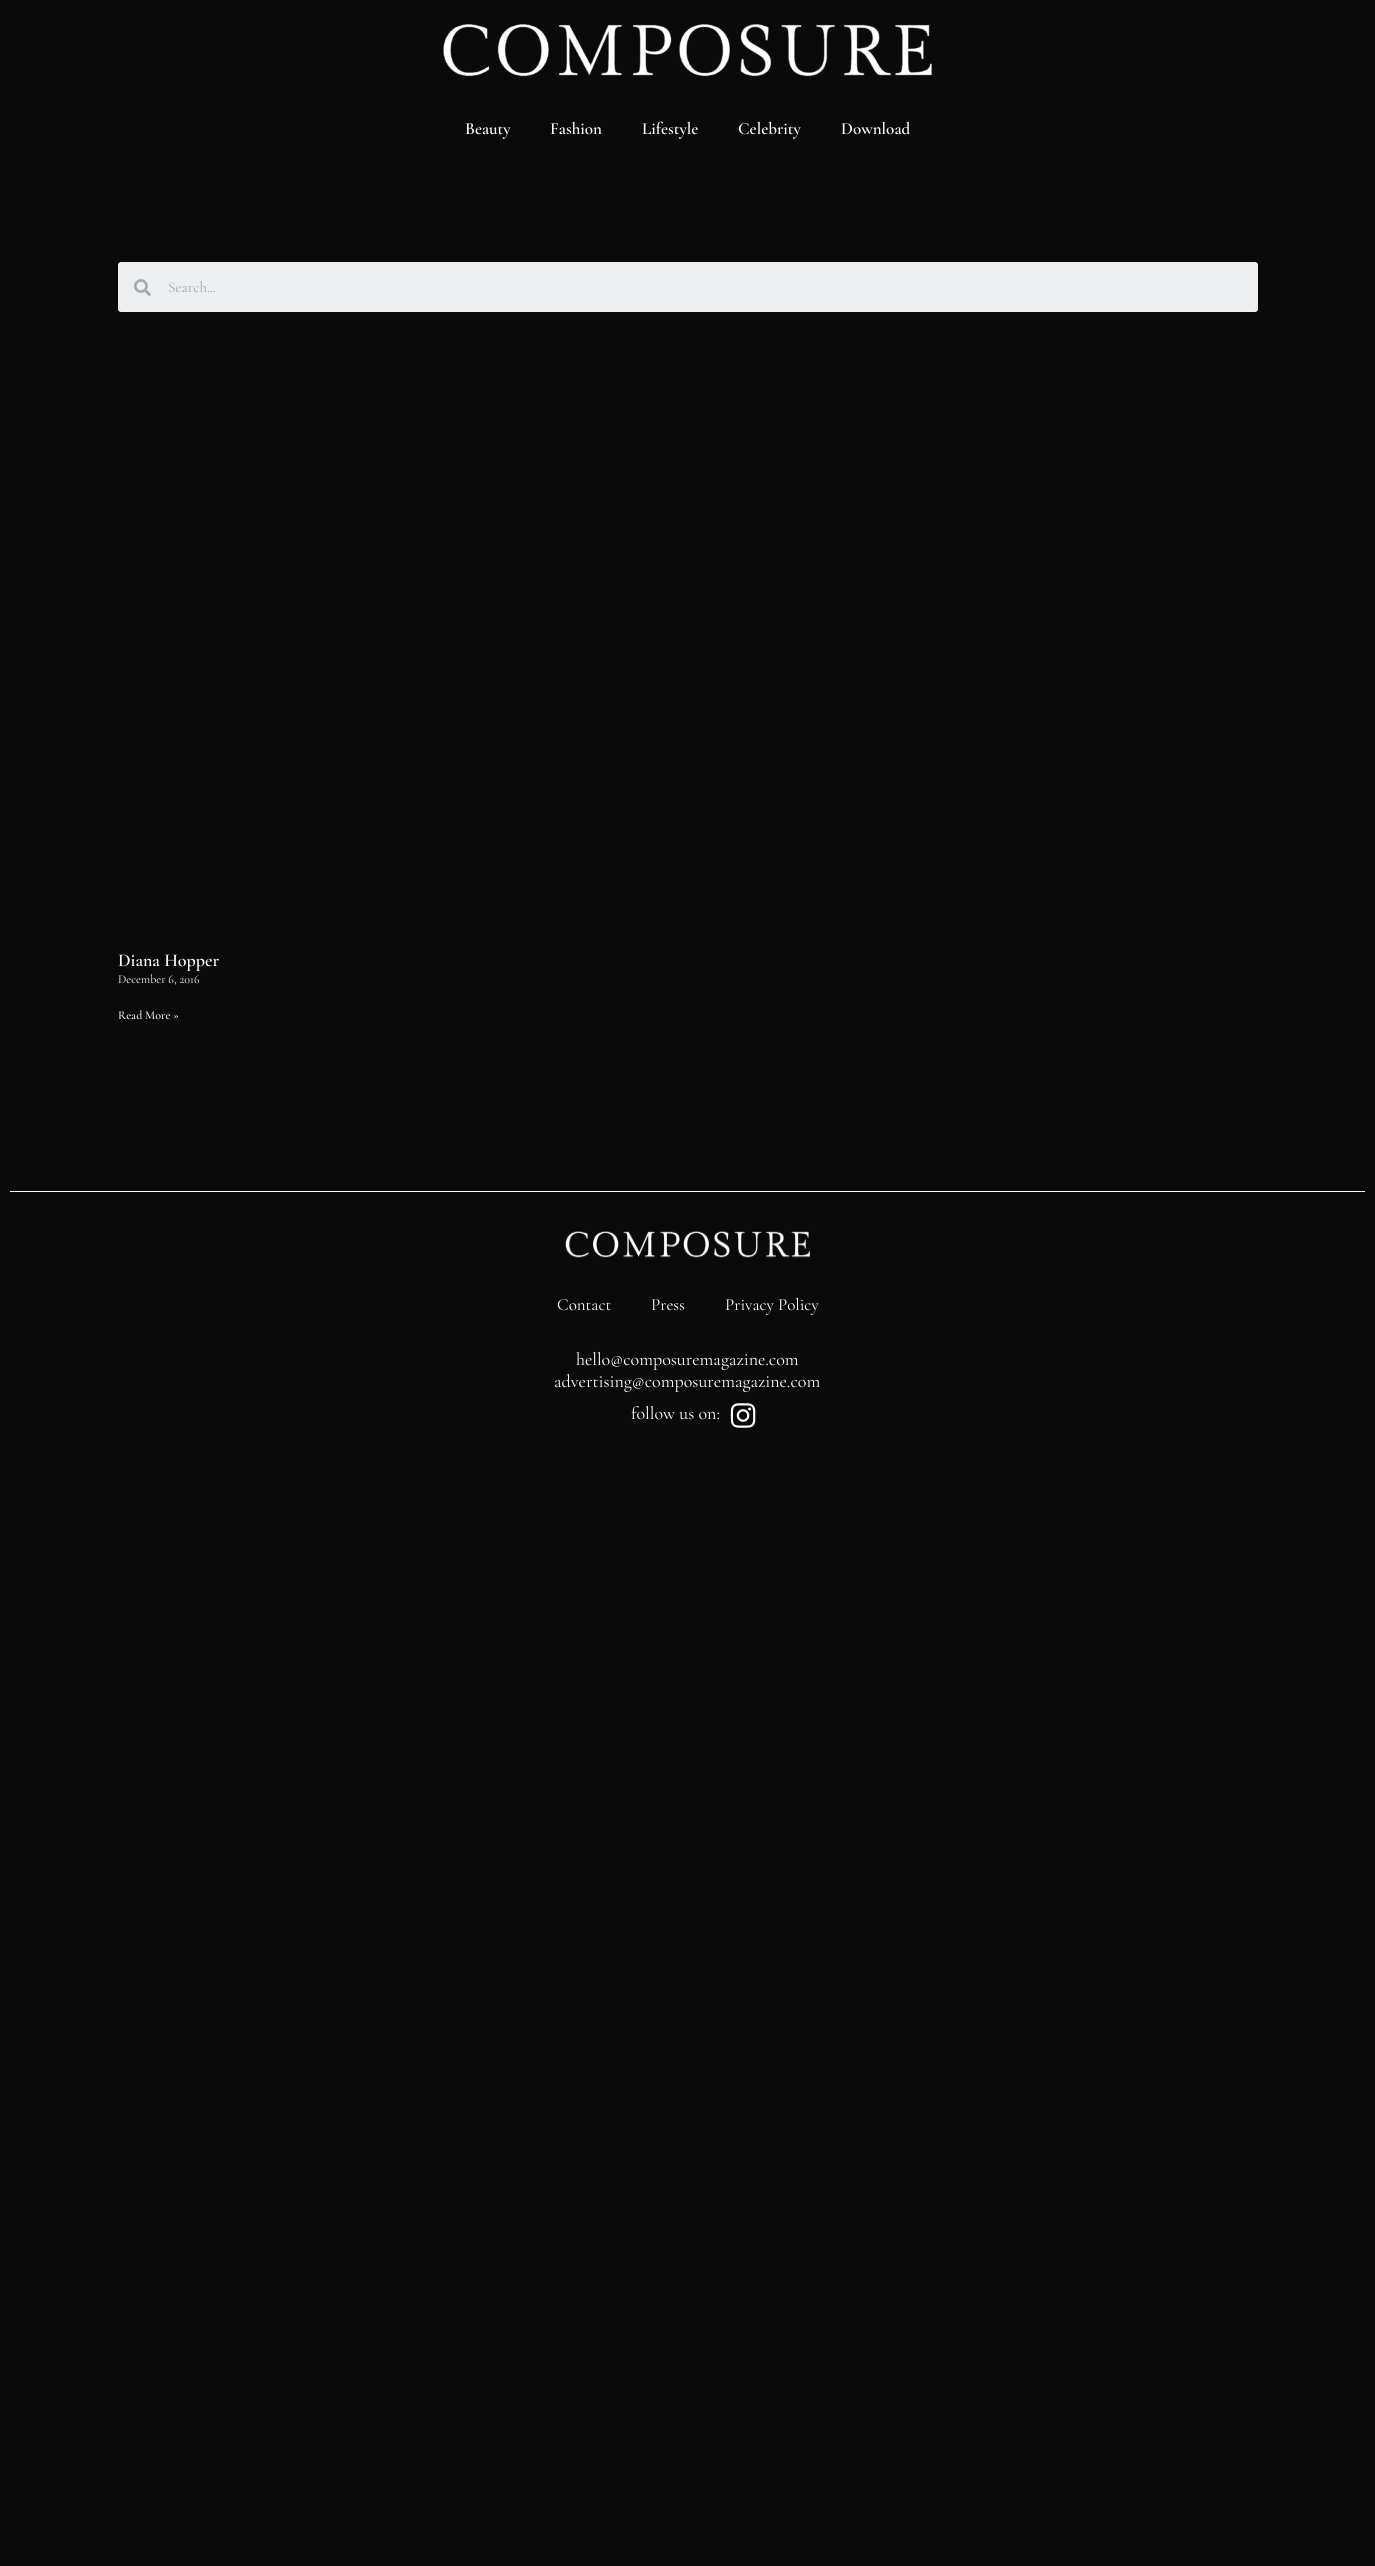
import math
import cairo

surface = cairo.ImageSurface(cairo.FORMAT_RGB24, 1375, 2566)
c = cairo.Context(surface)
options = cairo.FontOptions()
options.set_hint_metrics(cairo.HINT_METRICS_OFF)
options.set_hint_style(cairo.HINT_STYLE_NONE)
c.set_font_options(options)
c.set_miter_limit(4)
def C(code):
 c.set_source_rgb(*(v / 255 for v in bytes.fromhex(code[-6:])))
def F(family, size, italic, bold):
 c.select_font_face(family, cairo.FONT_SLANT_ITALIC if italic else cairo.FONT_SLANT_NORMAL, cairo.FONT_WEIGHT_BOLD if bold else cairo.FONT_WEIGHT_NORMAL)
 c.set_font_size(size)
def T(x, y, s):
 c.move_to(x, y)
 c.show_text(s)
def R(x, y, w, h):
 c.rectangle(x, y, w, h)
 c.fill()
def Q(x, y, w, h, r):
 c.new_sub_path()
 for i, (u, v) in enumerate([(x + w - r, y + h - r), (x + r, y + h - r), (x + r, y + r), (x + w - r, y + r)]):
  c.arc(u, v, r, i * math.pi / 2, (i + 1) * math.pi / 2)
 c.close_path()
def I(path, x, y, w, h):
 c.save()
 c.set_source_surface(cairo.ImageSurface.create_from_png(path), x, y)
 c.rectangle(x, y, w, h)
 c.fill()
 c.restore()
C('0a0a0a')
c.paint()
I('1.png',443,24,489,53)
F('Cormorant Garamond SemiBold',17,0,0)
C('ffffff')
T(465,134,'Beauty')
T(550,134,'Fashion')
T(642,134,'Lifestyle')
T(738,134,'Celebrity')
T(841,134,'Download')
C('eceeef')
Q(118,262,1140,50,3)
c.fill()
I('2.png',134,279,17,17)
F('Cormorant Garamond',15,0,0)
C('a8a8a9')
T(168,292,'Search...')
F('Cormorant Garamond SemiBold',18,0,0)
C('ffffff')
T(118,966,'Diana Hopper')
F('Cormorant Garamond',12,0,0)
T(118,983,'December 6, 2016')
F('Cormorant Garamond Medium',12,0,0)
T(118,1019,'Read More »')
R(10,1191,1355,1)
I('3.png',565,1231,245,27)
F('Cormorant Garamond',17,0,0)
T(557,1310,'Contact')
T(651,1310,'Press')
T(725,1310,'Privacy Policy')
F('Cormorant Garamond',18,0,0)
T(576,1365,'hello@composuremagazine.com')
T(554,1387,'advertising@composuremagazine.com')
T(631,1419,'follow us on:')
I('4.png',730,1403,26,25)
surface.write_to_png('o.png')
